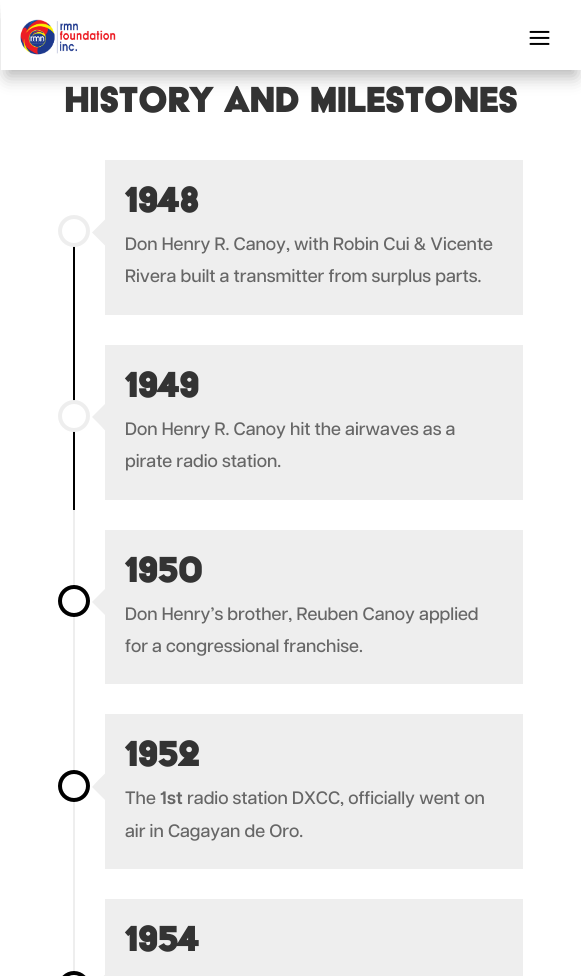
import math
import cairo

surface = cairo.ImageSurface(cairo.FORMAT_RGB24, 581, 976)
c = cairo.Context(surface)
options = cairo.FontOptions()
options.set_hint_metrics(cairo.HINT_METRICS_OFF)
options.set_hint_style(cairo.HINT_STYLE_NONE)
c.set_font_options(options)
c.set_miter_limit(4)
def C(code):
 c.set_source_rgb(*(v / 255 for v in bytes.fromhex(code[-6:])))
def F(family, size, italic, bold):
 c.select_font_face(family, cairo.FONT_SLANT_ITALIC if italic else cairo.FONT_SLANT_NORMAL, cairo.FONT_WEIGHT_BOLD if bold else cairo.FONT_WEIGHT_NORMAL)
 c.set_font_size(size)
def T(x, y, s):
 c.move_to(x, y)
 c.show_text(s)
def R(x, y, w, h):
 c.rectangle(x, y, w, h)
 c.fill()
def Q(x, y, w, h, r):
 c.new_sub_path()
 for i, (u, v) in enumerate([(x + w - r, y + h - r), (x + r, y + h - r), (x + r, y + r), (x + w - r, y + r)]):
  c.arc(u, v, r, i * math.pi / 2, (i + 1) * math.pi / 2)
 c.close_path()
def S(x, y, w, h, r, blur, alpha):
 c.push_group_with_content(cairo.CONTENT_ALPHA)
 c.set_operator(cairo.OPERATOR_SOURCE)
 for i in range(15, -16, -2):
  e = blur * i / 6
  if min(w, h) + 2 * e > 0:
   c.set_source_rgba(0, 0, 0, alpha * math.erfc((i - 1) / 8.5) / 2)
   Q(x - e, y - e, w + 2 * e, h + 2 * e, max(0, min(r + e + blur * .6, min(w, h) / 2 + e)))
   c.fill()
 c.mask(c.pop_group())
def I(path, x, y, w, h):
 c.save()
 c.set_source_surface(cairo.ImageSurface.create_from_png(path), x, y)
 c.rectangle(x, y, w, h)
 c.fill()
 c.restore()
C('ffffff')
c.paint()
c.save()
c.set_fill_rule(cairo.FILL_RULE_EVEN_ODD)
c.new_path()
c.move_to(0,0)
c.line_to(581,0)
c.line_to(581,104)
c.line_to(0,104)
c.close_path()
c.move_to(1,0)
c.line_to(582,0)
c.line_to(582,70)
c.line_to(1,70)
c.close_path()
c.clip()
C('000000')
S(7,18,569,58,0,9,.3)
c.restore()
I('1.png',20,19,96,36)
I('2.png',529,30,21,15)
F('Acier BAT',40,0,1)
C('333333')
T(64,112,'HISTORY AND MILESTONES')
C('eeeeee')
R(73,510,2,466)
C('000000')
R(73,246,2,264)
C('ffffff')
c.new_path()
c.arc(74,231,14,0,2 * math.pi)
c.fill_preserve()
C('eeeeee')
c.set_line_width(4)
c.stroke()
R(105,160,418,155)
C('333333')
T(125,212,'1948')
C('eeeeee')
c.new_path()
c.move_to(106,218.5)
c.line_to(106,246.5)
c.line_to(92,232.5)
c.close_path()
c.fill()
F('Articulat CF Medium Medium',18,0,0)
C('666666')
T(125,250,'Don Henry R. Canoy, with Robin Cui & Vicente')
T(125,282,'Rivera built a transmitter from surplus parts.')
C('ffffff')
c.new_path()
c.arc(74,416,14,0,2 * math.pi)
c.fill_preserve()
C('eeeeee')
c.stroke()
R(105,345,418,155)
F('Acier BAT',40,0,1)
C('333333')
T(125,397,'1949')
C('eeeeee')
c.new_path()
c.move_to(99.5,424.5)
c.line_to(92,417)
c.line_to(106,403)
c.line_to(106,431.5)
c.close_path()
c.fill()
F('Articulat CF Medium Medium',18,0,0)
C('666666')
T(125,435,'Don Henry R. Canoy hit the airwaves as a')
T(125,467,'pirate radio station.')
C('ffffff')
c.new_path()
c.arc(74,601,14,0,2 * math.pi)
c.fill_preserve()
C('000000')
c.stroke()
C('eeeeee')
R(105,530,418,154)
F('Acier BAT',40,0,1)
C('333333')
T(125,582,'1950')
C('eeeeee')
c.new_path()
c.move_to(106,588)
c.line_to(106,616)
c.line_to(92,602)
c.close_path()
c.fill()
F('Articulat CF Medium Medium',18,0,0)
C('666666')
T(125,620,'Don Henry’s brother, Reuben Canoy applied')
T(125,652,'for a congressional franchise.')
C('ffffff')
c.new_path()
c.arc(74,786,14,0,2 * math.pi)
c.fill_preserve()
C('000000')
c.stroke()
C('eeeeee')
R(105,714,418,155)
F('Acier BAT',40,0,1)
C('333333')
T(125,766,'1952')
C('eeeeee')
c.new_path()
c.move_to(106,772.5)
c.line_to(106,801)
c.line_to(92,787)
c.line_to(97.5,781)
c.close_path()
c.fill()
F('Articulat CF Medium Medium',18,0,0)
C('666666')
T(125,804,'The')
F('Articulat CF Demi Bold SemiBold',18,0,0)
T(160,804,'1st')
F('Articulat CF Medium Medium',18,0,0)
T(187,804,'radio station DXCC, officially went on')
T(125,837,'air in Cagayan de Oro.')
C('eeeeee')
R(105,899,418,77)
F('Acier BAT',40,0,1)
C('333333')
T(125,951,'1954')
C('eeeeee')
c.new_path()
c.move_to(106,973.5)
c.line_to(106,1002)
c.line_to(92,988)
c.line_to(97.5,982.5)
c.close_path()
c.fill()
C('ffffff')
Q(60,973,28,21,14)
c.fill_preserve()
C('000000')
c.stroke()
surface.write_to_png('o.png')
